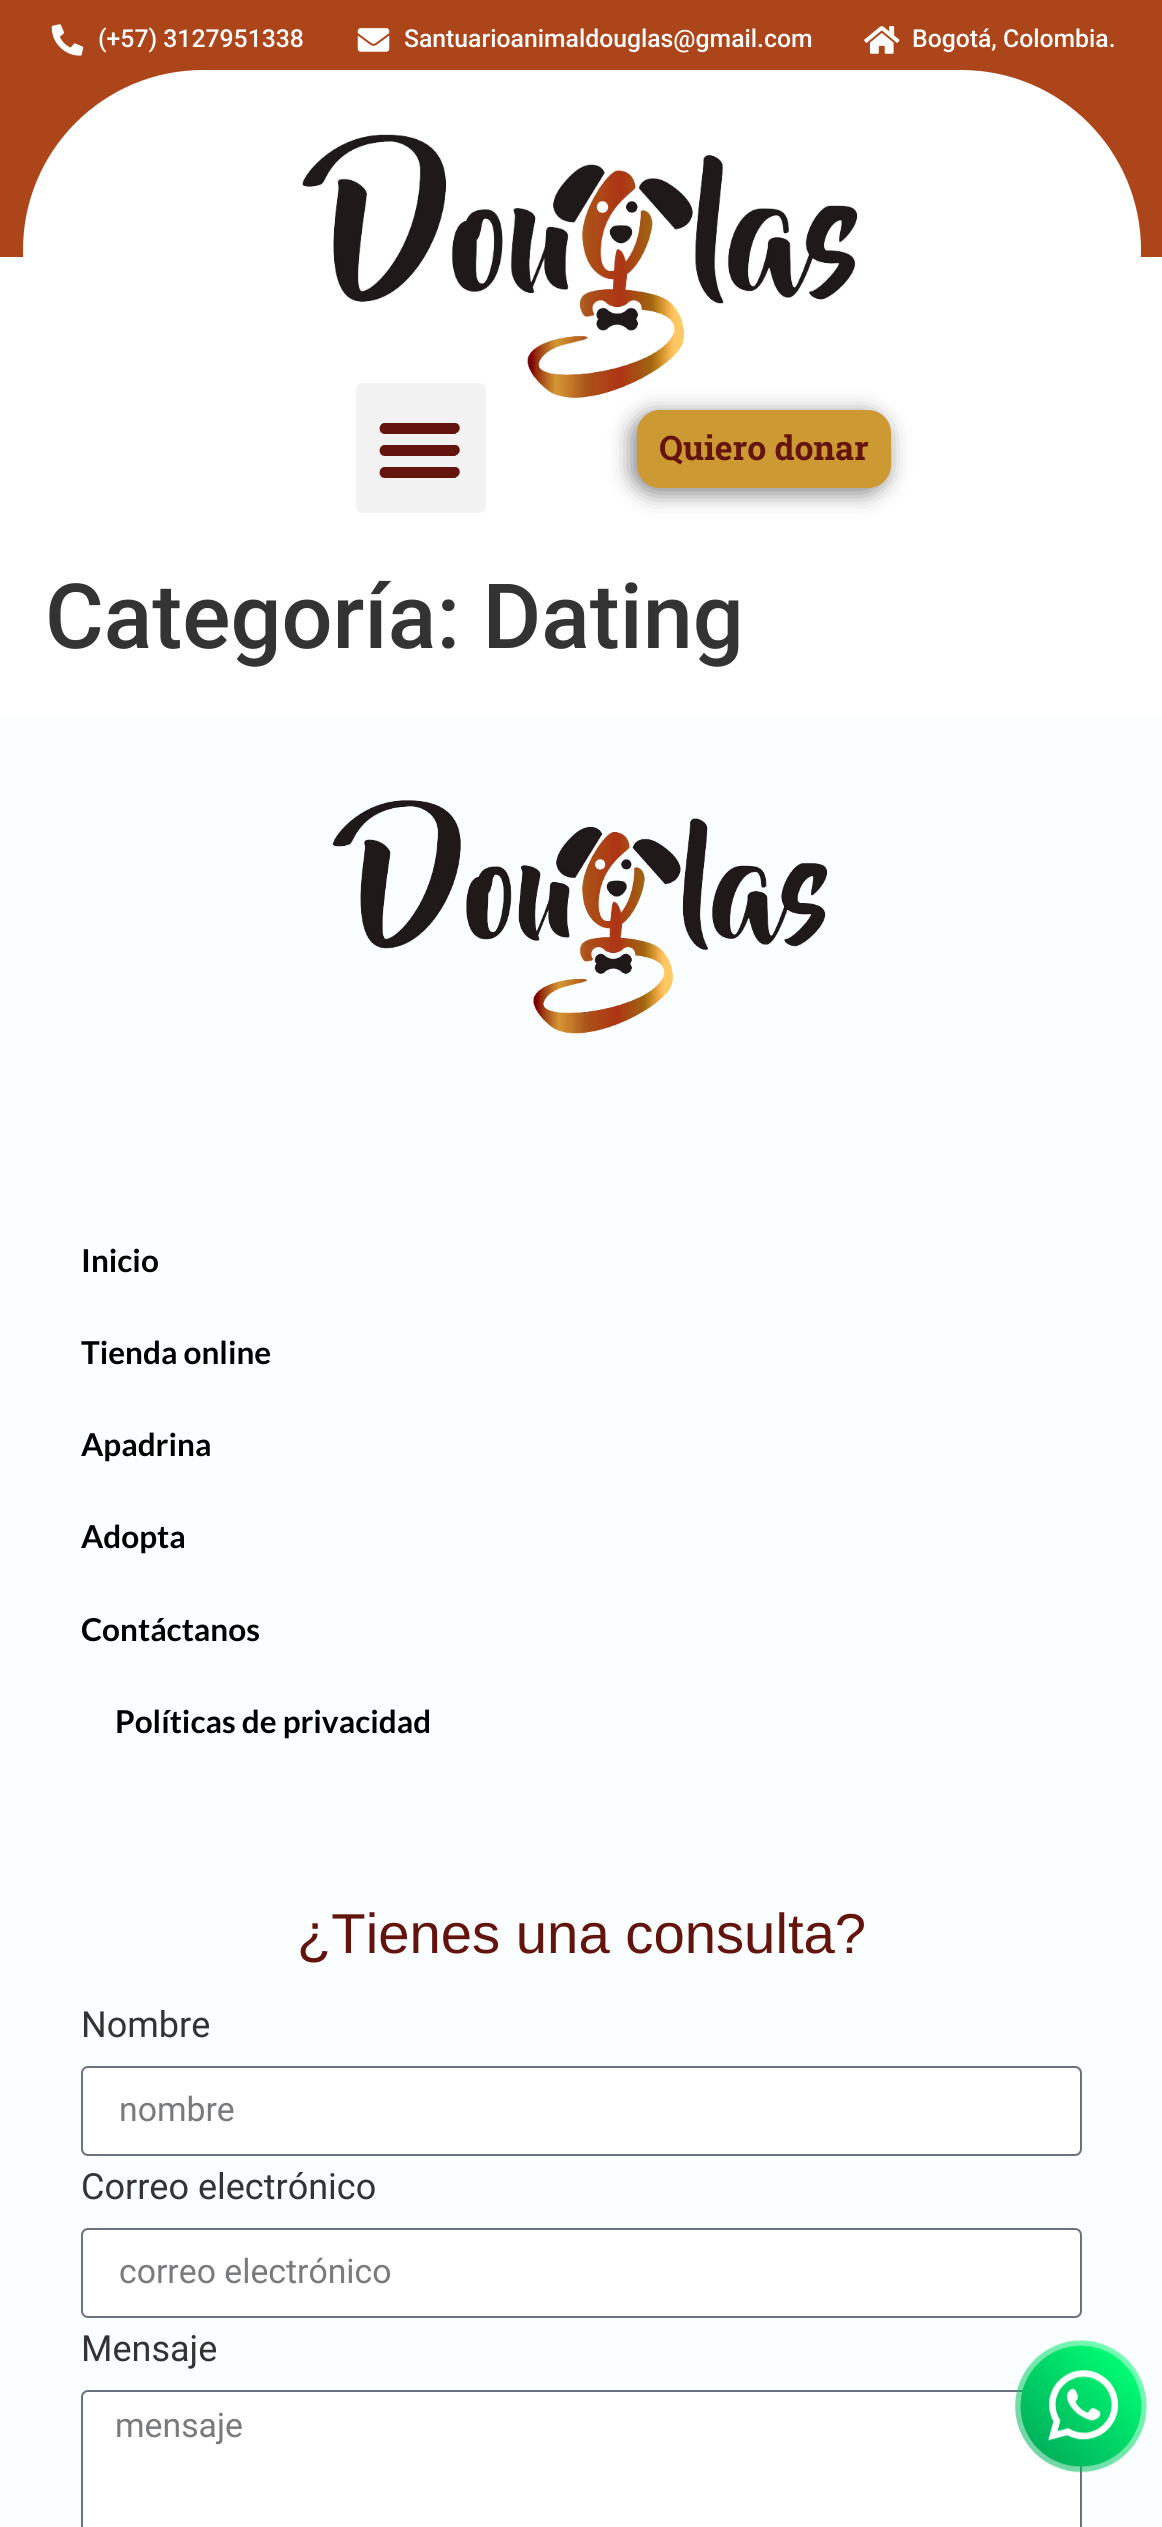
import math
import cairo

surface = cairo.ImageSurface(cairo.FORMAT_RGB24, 1162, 2527)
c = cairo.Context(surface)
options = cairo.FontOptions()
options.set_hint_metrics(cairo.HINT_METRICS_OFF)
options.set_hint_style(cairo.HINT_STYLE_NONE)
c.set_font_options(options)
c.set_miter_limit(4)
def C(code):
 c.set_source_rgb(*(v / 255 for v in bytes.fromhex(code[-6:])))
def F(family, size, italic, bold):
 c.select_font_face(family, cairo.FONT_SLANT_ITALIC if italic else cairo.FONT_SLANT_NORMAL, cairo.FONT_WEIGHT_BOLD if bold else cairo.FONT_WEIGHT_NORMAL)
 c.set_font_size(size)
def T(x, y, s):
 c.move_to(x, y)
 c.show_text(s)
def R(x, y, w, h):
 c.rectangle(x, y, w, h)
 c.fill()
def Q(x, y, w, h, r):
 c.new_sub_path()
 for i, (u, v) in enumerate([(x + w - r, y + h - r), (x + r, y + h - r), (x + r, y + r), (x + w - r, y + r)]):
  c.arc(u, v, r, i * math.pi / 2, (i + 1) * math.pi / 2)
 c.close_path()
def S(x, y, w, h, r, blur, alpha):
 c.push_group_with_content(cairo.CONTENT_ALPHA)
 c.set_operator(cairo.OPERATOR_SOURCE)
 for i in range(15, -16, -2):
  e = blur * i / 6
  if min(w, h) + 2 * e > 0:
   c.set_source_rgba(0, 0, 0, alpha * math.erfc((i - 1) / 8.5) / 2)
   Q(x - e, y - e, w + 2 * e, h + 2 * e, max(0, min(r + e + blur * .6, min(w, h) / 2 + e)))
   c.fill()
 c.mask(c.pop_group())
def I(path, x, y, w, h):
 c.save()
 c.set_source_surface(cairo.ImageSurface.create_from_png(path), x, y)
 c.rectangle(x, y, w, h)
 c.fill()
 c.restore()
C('ffffff')
c.paint()
C('ac451a')
R(0,0,1162,257)
I('1.png',51,24,33,32)
F('Roboto Medium',24.75,0,0)
C('ffffff')
T(98,47,'(+57) 3127951338')
I('2.png',357,28,33,24)
T(404,47,'Santuarioanimaldouglas@gmail.com')
I('3.png',864,26,36,28)
T(912,47,'Bogotá, Colombia.')
Q(23,70,1118,360,180)
c.fill()
I('4.png',302,134,556,264)
C('f2f2f2')
Q(356,383,130,130,7)
c.fill()
C('63140d')
c.new_path()
c.move_to(385,434)
c.line_to(455,434)
c.line_to(458,432)
c.curve_to(461,429,460,424,456,423)
c.line_to(384,423)
c.curve_to(378,424,378,434,385,434)
c.close_path()
c.move_to(385,456)
c.line_to(455,456)
c.line_to(458,454)
c.curve_to(461,451,460,446,456,445)
c.line_to(384,445)
c.curve_to(378,446,378,456,385,456)
c.close_path()
c.move_to(385,478)
c.line_to(455,478)
c.line_to(458,476)
c.curve_to(461,473,460,468,456,467)
c.line_to(384,467)
c.curve_to(378,468,378,478,385,478)
c.close_path()
c.fill()
C('000000')
S(632,414,255,79,23,11,.5)
C('cd9933')
Q(637,410,254,78,23)
c.fill()
F('Roboto Slab',33.75,0,1)
C('63140d')
T(659,460,'Quiero donar')
F('Roboto Medium',90,0,0)
C('333333')
T(45,648,'Categoría: Dating')
C('fbfeff')
R(0,718,1162,1809)
I('5.png',332,800,496,234)
F('Lato',31.5,0,1)
C('000000')
T(81,1272,'Inicio')
T(81,1364,'Tienda online')
T(81,1456,'Apadrina')
T(81,1548,'Adopta')
T(81,1641,'Contáctanos')
T(115,1733,'Políticas de privacidad')
F('Liberation Sans',56.25,0,0)
C('63140d')
T(297,1953,'¿Tienes una consulta?')
F('Roboto',36,0,0)
C('333333')
T(81,2037,'Nombre')
C('ffffff')
Q(82,2067,999,88,6)
c.fill_preserve()
C('69727d')
c.stroke()
F('Roboto',33.75,0,0)
C('797a7c')
T(119,2121,'nombre')
F('Roboto',36,0,0)
C('333333')
T(81,2199,'Correo electrónico')
C('ffffff')
Q(82,2229,999,88,6)
c.fill_preserve()
C('69727d')
c.stroke()
F('Roboto',33.75,0,0)
C('797a7c')
T(119,2283,'correo electrónico')
F('Roboto',36,0,0)
C('333333')
T(81,2361,'Mensaje')
C('ffffff')
Q(82,2391,999,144,6)
c.fill_preserve()
C('69727d')
c.stroke()
F('Roboto',33.75,0,0)
C('797a7c')
T(115,2437,'mensaje')
I('6.png',1015,2340,132,133)
surface.write_to_png('o.png')
